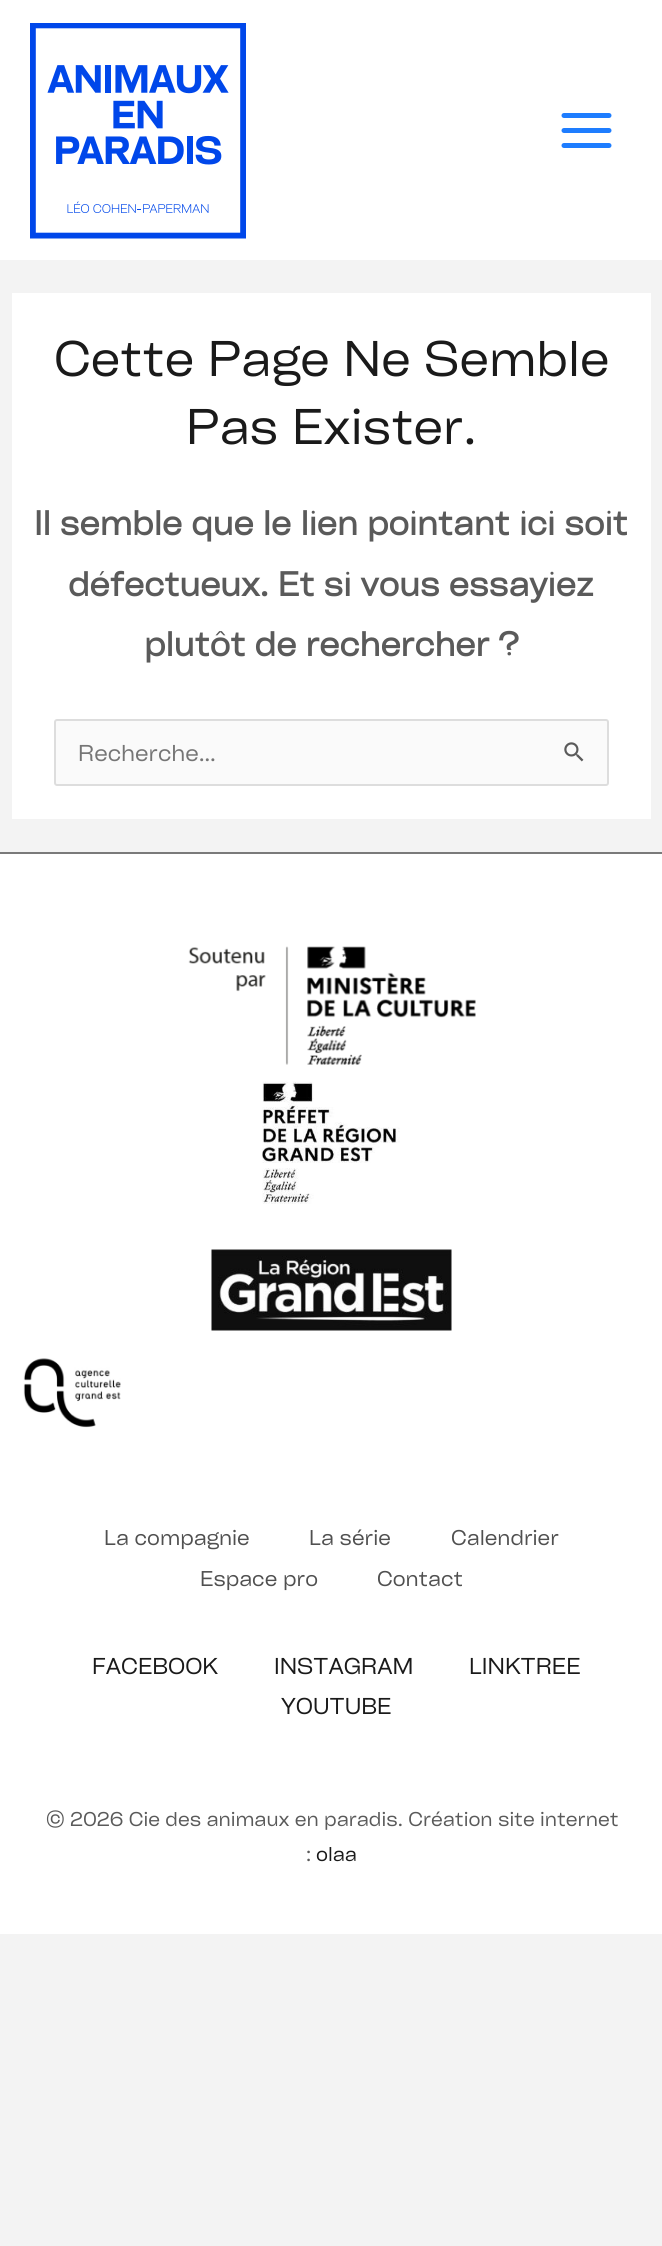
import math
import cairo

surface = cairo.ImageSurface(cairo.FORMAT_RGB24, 662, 2246)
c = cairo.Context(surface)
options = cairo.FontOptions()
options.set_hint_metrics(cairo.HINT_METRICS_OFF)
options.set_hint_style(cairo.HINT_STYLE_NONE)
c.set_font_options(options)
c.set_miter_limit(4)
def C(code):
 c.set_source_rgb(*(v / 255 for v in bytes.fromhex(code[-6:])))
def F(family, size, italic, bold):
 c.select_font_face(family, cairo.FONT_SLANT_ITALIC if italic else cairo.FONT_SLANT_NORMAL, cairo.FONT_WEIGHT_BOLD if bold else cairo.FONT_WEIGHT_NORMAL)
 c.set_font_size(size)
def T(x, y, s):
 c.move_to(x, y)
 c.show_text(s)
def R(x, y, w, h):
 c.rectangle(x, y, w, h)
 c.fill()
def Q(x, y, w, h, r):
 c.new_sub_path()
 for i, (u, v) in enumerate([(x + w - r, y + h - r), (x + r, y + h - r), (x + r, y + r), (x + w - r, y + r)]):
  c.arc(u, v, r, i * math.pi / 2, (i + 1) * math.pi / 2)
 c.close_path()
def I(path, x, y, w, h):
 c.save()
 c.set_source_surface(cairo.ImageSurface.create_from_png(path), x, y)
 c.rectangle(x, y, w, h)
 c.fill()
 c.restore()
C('f3f3f3')
c.paint()
C('ffffff')
R(0,0,662,260)
I('1.png',30,23,216,216)
I('2.png',561,113,51,35)
R(12,293,639,526)
F('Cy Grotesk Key',48,0,0)
C('1a1a1a')
T(54,376,'Cette Page Ne Semble')
T(186,444,'Pas Exister.')
F('Cy Grotesk Key',32.8,0,1)
C('5a5a5a')
T(34,535,'Il semble que le lien pointant ici soit')
T(68,596,'défectueux. Et si vous essayiez')
T(144,656,'plutôt de rechercher ?')
C('fafafa')
Q(55,720,553,65,2)
c.fill_preserve()
C('dddddd')
c.stroke()
F('Cy Grotesk Key',22,0,0)
C('757575')
T(78,761,'Recherche…')
I('3.png',564,742,20,20)
C('ffffff')
R(0,854,662,1080)
C('7a7a7a')
R(0,852,662,2)
I('4.png',188,946,288,119)
I('5.png',262,1081,138,123)
I('6.png',211,1249,241,82)
I('7.png',23,1358,98,70)
F('Cy Grotesk Key',20.5,0,0)
C('505050')
T(104,1545,'La compagnie')
T(309,1545,'La série')
T(451,1545,'Calendrier')
T(200,1586,'Espace pro')
T(377,1586,'Contact')
F('Cy Grotesk Key',22,0,0)
C('1a1a1a')
T(92,1674,'FACEBOOK')
T(274,1674,'INSTAGRAM')
T(469,1674,'LINKTREE')
T(281,1714,'YOUTUBE')
F('Cy Grotesk Key',19.15,0,0)
C('5a5a5a')
T(46,1826,'© 2026 Cie des animaux en paradis. Création site internet')
T(306,1861,':')
C('1a1a1a')
T(316,1861,'olaa')
surface.write_to_png('o.png')
